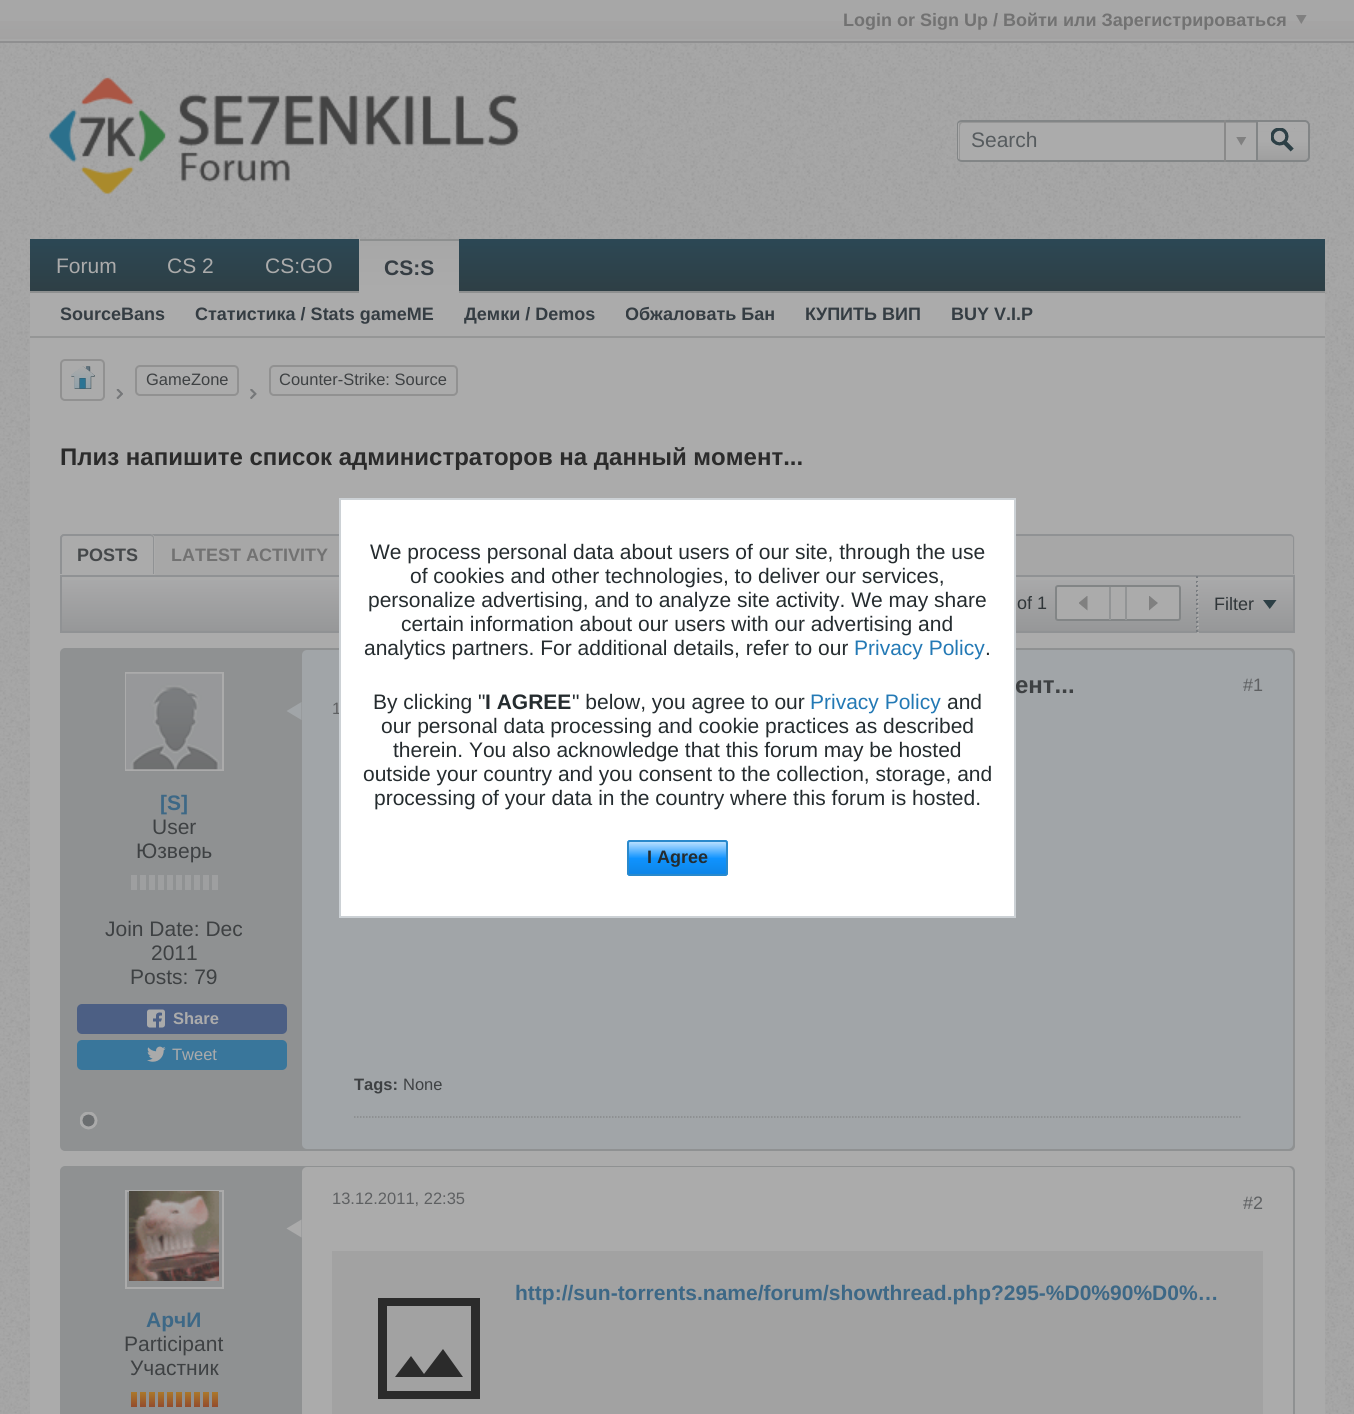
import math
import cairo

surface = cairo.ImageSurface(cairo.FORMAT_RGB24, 1354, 1414)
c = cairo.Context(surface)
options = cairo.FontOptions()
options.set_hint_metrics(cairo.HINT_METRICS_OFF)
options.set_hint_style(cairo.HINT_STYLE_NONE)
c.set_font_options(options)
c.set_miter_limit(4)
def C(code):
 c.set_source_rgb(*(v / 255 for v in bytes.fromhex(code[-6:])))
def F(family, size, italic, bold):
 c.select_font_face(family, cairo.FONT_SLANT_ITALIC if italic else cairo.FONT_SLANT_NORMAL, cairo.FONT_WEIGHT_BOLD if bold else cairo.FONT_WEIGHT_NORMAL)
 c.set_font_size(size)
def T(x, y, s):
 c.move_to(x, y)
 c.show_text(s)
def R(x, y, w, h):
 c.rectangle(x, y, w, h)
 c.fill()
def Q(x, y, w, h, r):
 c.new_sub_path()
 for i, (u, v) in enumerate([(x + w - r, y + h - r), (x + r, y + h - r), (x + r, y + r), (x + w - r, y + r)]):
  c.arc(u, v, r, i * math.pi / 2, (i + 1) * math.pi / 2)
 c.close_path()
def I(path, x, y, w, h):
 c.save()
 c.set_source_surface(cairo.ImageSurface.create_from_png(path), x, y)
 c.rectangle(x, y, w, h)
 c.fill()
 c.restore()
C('a7a7a7')
c.paint()
I('1.png',0,43,1354,1371)
gradient = cairo.LinearGradient(677,0,677,42)
gradient.add_color_stop_rgba(0,0.655,0.655,0.655,1)
gradient.add_color_stop_rgba(1,0.639,0.635,0.635,1)
c.set_source(gradient)
R(0,21,1354,18)
F('Liberation Sans',18,0,1)
C('727272')
T(843,26,'Login or Sign Up / Войти или Зарегистрироваться')
I('2.png',1296,15,11,9)
C('8f8f90')
R(0,41,1354,2)
I('3.png',49,77,471,117)
C('ababab')
c.new_path()
c.move_to(962,120)
c.line_to(1256,120)
c.line_to(1256,162)
c.line_to(962,162)
c.curve_to(959,162,957,160,957,157)
c.line_to(957,125)
c.curve_to(957,122,959,120,962,120)
c.close_path()
c.fill()
C('969696')
c.new_path()
c.move_to(963,123)
c.line_to(1256,123)
c.line_to(1256,122)
c.line_to(962,122)
c.curve_to(960,122,959,123,959,125)
c.line_to(959,158)
c.curve_to(959,159,959,160,960,160)
c.line_to(960,132)
c.curve_to(960,129,959,123,963,123)
c.close_path()
c.fill()
C('828586')
c.set_fill_rule(cairo.FILL_RULE_EVEN_ODD)
c.new_path()
c.move_to(962,120)
c.line_to(1256,120)
c.line_to(1256,162)
c.line_to(962,162)
c.curve_to(959,162,957,160,957,158)
c.line_to(957,124)
c.curve_to(957,122,959,120,962,120)
c.close_path()
c.move_to(962,122)
c.line_to(1256,122)
c.line_to(1256,160)
c.line_to(962,160)
c.curve_to(960,160,958,159,958,158)
c.line_to(958,124)
c.curve_to(958,123,960,122,962,122)
c.close_path()
c.fill()
F('Liberation Sans',21,0,0)
C('565b5e')
T(971,147,'Search')
C('8a8a8a')
R(1224,120,2,42)
I('4.png',1236,137,11,9)
C('ababab')
c.new_path()
c.move_to(1256,120)
c.line_to(1305,120)
c.curve_to(1308,120,1310,122,1310,125)
c.line_to(1310,157)
c.curve_to(1310,160,1308,162,1305,162)
c.line_to(1256,162)
c.close_path()
c.fill()
c.save()
c.set_fill_rule(cairo.FILL_RULE_WINDING)
c.new_path()
c.move_to(1256,120)
c.line_to(1305,120)
c.curve_to(1308,120,1310,122,1310,125)
c.line_to(1310,157)
c.curve_to(1310,160,1308,162,1305,162)
c.line_to(1256,162)
c.close_path()
c.clip()
gradient = cairo.LinearGradient(1283,161,1283,122)
gradient.add_color_stop_rgba(0,0.169,0.169,0.169,.1)
gradient.add_color_stop_rgba(.5,0.169,0.169,0.169,0)
gradient.add_color_stop_rgba(.5,0.671,0.671,0.671,0)
gradient.add_color_stop_rgba(1,0.671,0.671,0.671,.7)
c.set_source(gradient)
R(1258,122,52,39)
c.restore()
c.new_path()
c.move_to(1257,121)
c.line_to(1305,121)
c.curve_to(1307,121,1309,123,1309,125)
c.line_to(1309,157)
c.curve_to(1309,159,1307,161,1305,161)
c.line_to(1257,161)
c.close_path()
C('828586')
c.stroke()
I('5.png',1271,128,24,24)
gradient = cairo.LinearGradient(677,238,677,291)
gradient.add_color_stop_rgba(0,0.173,0.282,0.333,1)
gradient.add_color_stop_rgba(1,0.18,0.247,0.271,1)
c.set_source(gradient)
R(30,239,1295,52)
C('8d8f8f')
R(30,291,1295,2)
C('ababab')
T(56,273,'Forum')
T(167,273,'CS 2')
T(265,273,'CS:GO')
gradient = cairo.LinearGradient(409,188,409,240)
gradient.add_color_stop_rgba(0,0.655,0.655,0.655,1)
gradient.add_color_stop_rgba(1,0.671,0.671,0.671,1)
c.set_source(gradient)
R(359,239,1,1)
gradient = cairo.LinearGradient(409,240,409,293)
gradient.add_color_stop_rgba(0,0.655,0.655,0.655,1)
gradient.add_color_stop_rgba(1,0.671,0.671,0.671,1)
c.set_source(gradient)
R(359,240,100,53)
C('8d8f8f')
R(360,239,99,2)
F('Liberation Sans',21,0,1)
C('353d43')
T(384,275,'CS:S')
C('ababab')
R(30,293,1295,43)
C('959696')
R(30,336,1295,2)
F('Liberation Sans',18,0,1)
C('353d43')
T(60,320,'SourceBans')
T(195,320,'Статистика / Stats gameME')
c.save()
c.set_fill_rule(cairo.FILL_RULE_WINDING)
c.rectangle(464,293,132,43)
c.clip()
T(464,320,'Демки / Demos')
c.restore()
c.save()
c.set_fill_rule(cairo.FILL_RULE_WINDING)
c.rectangle(626,293,150,43)
c.clip()
T(625,320,'Обжаловать Бан')
c.restore()
T(805,320,'КУПИТЬ ВИП')
T(951,320,'BUY V.I.P')
C('ababab')
R(30,338,1295,1076)
Q(61,360,43,40,4)
C('919191')
c.stroke()
I('6.png',71,366,24,23)
Q(136,366,102,29,4)
c.stroke()
F('Liberation Sans',16.5,0,0)
C('3e4143')
T(146,385,'GameZone')
I('7.png',116,389,7,10)
Q(270,366,187,29,4)
C('919191')
c.stroke()
C('3e4143')
T(279,385,'Counter-Strike: Source')
I('8.png',250,389,7,10)
F('Liberation Sans',24,0,1)
C('2b2b2b')
T(60,465,'Плиз напишите список администраторов на данный момент...')
C('a7a7a7')
c.new_path()
c.move_to(65,534)
c.line_to(1290,534)
c.curve_to(1293,534,1295,536,1295,539)
c.line_to(1295,575)
c.line_to(60,575)
c.line_to(60,539)
c.curve_to(60,536,62,534,65,534)
c.close_path()
c.fill()
C('909294')
c.new_path()
c.move_to(64,534)
c.line_to(1290,534)
c.curve_to(1292,534,1294,536,1294,538)
c.line_to(1294,574)
c.line_to(60,574)
c.line_to(60,538)
c.curve_to(60,536,62,534,64,534)
c.close_path()
c.move_to(64,536)
c.line_to(1290,536)
c.curve_to(1292,536,1293,537,1293,538)
c.line_to(1293,574)
c.line_to(62,574)
c.line_to(62,538)
c.curve_to(62,537,63,536,64,536)
c.close_path()
c.fill()
C('ababab')
c.new_path()
c.move_to(65,534)
c.line_to(150,534)
c.curve_to(153,534,155,536,155,539)
c.line_to(155,575)
c.line_to(60,575)
c.line_to(60,539)
c.curve_to(60,536,62,534,65,534)
c.close_path()
c.fill()
C('909294')
c.new_path()
c.move_to(64,534)
c.line_to(150,534)
c.curve_to(152,534,154,536,154,538)
c.line_to(154,574)
c.line_to(60,574)
c.line_to(60,538)
c.curve_to(60,536,62,534,64,534)
c.close_path()
c.move_to(64,536)
c.line_to(150,536)
c.curve_to(152,536,153,537,153,538)
c.line_to(153,574)
c.line_to(62,574)
c.line_to(62,538)
c.curve_to(62,537,63,536,64,536)
c.close_path()
c.fill()
F('Liberation Sans',18,0,1)
C('45484a')
T(77,561,'POSTS')
C('727272')
T(171,561,'LATEST ACTIVITY')
gradient = cairo.LinearGradient(677,576,677,632)
gradient.add_color_stop_rgba(0,0.667,0.667,0.671,1)
gradient.add_color_stop_rgba(1,0.588,0.592,0.596,1)
c.set_source(gradient)
R(62,580,1231,51)
c.rectangle(61,576,1233,56)
C('909294')
c.stroke()
F('Liberation Sans',18,0,0)
C('303639')
T(1017,609,'of 1')
C('ababab')
Q(1056,586,124,34,2)
c.fill_preserve()
C('828586')
c.stroke()
C('929495')
R(1109,587,2,33)
I('9.png',1079,596,9,15)
R(1125,587,2,33)
I('10.png',1149,596,9,15)
I('11.png',1196,576,2,56)
I('12.png',1197,582,2,51)
C('303639')
T(1214,610,'Filter')
I('13.png',1263,600,14,9)
C('8f9192')
Q(61,649,1233,501,4)
c.fill_preserve()
c.stroke()
c.rectangle(126,673,97,97)
C('ababab')
c.stroke()
I('14.png',126,673,96,97)
F('Liberation Sans',21,0,1)
C('3d6886')
T(160,810,'[S]')
F('Liberation Sans',21,0,0)
C('3e4143')
T(152,834,'User')
T(136,858,'Юзверь')
C('9e9fa0')
R(131,875,6,15)
R(140,875,6,15)
R(149,875,6,15)
R(158,875,6,15)
R(167,875,6,15)
R(176,875,6,15)
R(185,875,6,15)
R(194,875,6,15)
R(203,875,6,15)
R(212,875,6,15)
C('3e4143')
T(105,936,'Join Date: Dec')
T(151,960,'2011')
T(130,984,'Posts: 79')
I('15.png',80,1112,18,18)
C('4c5f84')
Q(77,1004,210,30,5)
c.fill()
I('16.png',147,1009,18,19)
F('Liberation Sans',16.5,0,1)
C('ababab')
T(173,1024,'Share')
C('39769b')
Q(77,1040,210,30,5)
c.fill()
I('17.png',147,1046,19,16)
F('Liberation Sans',16.5,0,0)
C('ababab')
T(172,1060,'Tweet')
C('a1a5a8')
Q(302,650,991,499,5)
c.fill()
c.set_fill_rule(cairo.FILL_RULE_WINDING)
c.new_path()
c.move_to(301.5,702)
c.line_to(301.5,720)
c.line_to(286.5,711)
c.close_path()
c.fill()
F('Liberation Sans',24,0,1)
C('3e4143')
T(1015,693,'ент...')
F('Liberation Sans',16.5,0,0)
C('5e6062')
T(332,714,'1')
F('Liberation Sans',18,0,0)
T(1243,691,'#1')
F('Liberation Sans',16.5,0,1)
C('3e4143')
T(354,1090,'Tags:')
F('Liberation Sans',16.5,0,0)
T(403,1090,'None')
c.new_path()
c.move_to(354,1117)
c.line_to(1240.5,1117)
C('87898a')
c.set_line_width(1.5)
c.set_dash([1.5,1.5])
c.stroke()
C('8f9192')
Q(61,1167,1233,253,4)
c.fill_preserve()
c.set_line_width(2)
c.set_dash([])
c.stroke()
C('ababab')
Q(302,1167,991,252,5)
c.fill()
c.new_path()
c.move_to(301.5,1219.5)
c.line_to(301.5,1237.5)
c.line_to(286.5,1228.5)
c.close_path()
c.fill()
C('5e6062')
T(332,1204,'13.12.2011, 22:35')
F('Liberation Sans',18,0,0)
T(1243,1209,'#2')
C('a2a2a2')
R(332,1251,931,163)
F('Liberation Sans',21,0,1)
C('3d6886')
T(515,1300,'http://sun-torrents.name/forum/showthread.php?295-%D0%90%D0%…')
C('2b2b2b')
c.new_path()
c.move_to(395,1377)
c.line_to(463,1377)
c.line_to(443,1349)
c.line_to(424,1374)
c.line_to(411,1356)
c.close_path()
c.move_to(378,1399)
c.line_to(378,1298)
c.line_to(480,1298)
c.line_to(480,1399)
c.close_path()
c.move_to(387,1391)
c.line_to(471,1391)
c.line_to(471,1306)
c.line_to(387,1306)
c.close_path()
c.move_to(387,1306)
c.line_to(387,1391)
c.close_path()
c.fill()
c.rectangle(126,1191,97,97)
C('ababab')
c.stroke()
I('18.png',129,1191,90,90)
C('3d6886')
T(146,1327,'АрчИ')
F('Liberation Sans',21,0,0)
C('3e4143')
T(124,1351,'Participant')
T(130,1375,'Участник')
gradient = cairo.LinearGradient(134,1392,134,1407)
gradient.add_color_stop_rgba(0,0.671,0.471,0.169,1)
gradient.add_color_stop_rgba(1,0.576,0.298,0.176,1)
c.set_source(gradient)
R(131,1392,6,15)
gradient = cairo.LinearGradient(143,1392,143,1407)
gradient.add_color_stop_rgba(0,0.671,0.471,0.169,1)
gradient.add_color_stop_rgba(1,0.576,0.298,0.176,1)
c.set_source(gradient)
R(140,1392,6,15)
gradient = cairo.LinearGradient(152,1392,152,1407)
gradient.add_color_stop_rgba(0,0.671,0.471,0.169,1)
gradient.add_color_stop_rgba(1,0.576,0.298,0.176,1)
c.set_source(gradient)
R(149,1392,6,15)
gradient = cairo.LinearGradient(161,1392,161,1407)
gradient.add_color_stop_rgba(0,0.671,0.471,0.169,1)
gradient.add_color_stop_rgba(1,0.576,0.298,0.176,1)
c.set_source(gradient)
R(158,1392,6,15)
gradient = cairo.LinearGradient(170,1392,170,1407)
gradient.add_color_stop_rgba(0,0.671,0.471,0.169,1)
gradient.add_color_stop_rgba(1,0.576,0.298,0.176,1)
c.set_source(gradient)
R(167,1392,6,15)
gradient = cairo.LinearGradient(179,1392,179,1407)
gradient.add_color_stop_rgba(0,0.671,0.471,0.169,1)
gradient.add_color_stop_rgba(1,0.576,0.298,0.176,1)
c.set_source(gradient)
R(176,1392,6,15)
gradient = cairo.LinearGradient(188,1392,188,1407)
gradient.add_color_stop_rgba(0,0.671,0.471,0.169,1)
gradient.add_color_stop_rgba(1,0.576,0.298,0.176,1)
c.set_source(gradient)
R(185,1392,6,15)
gradient = cairo.LinearGradient(197,1392,197,1407)
gradient.add_color_stop_rgba(0,0.671,0.471,0.169,1)
gradient.add_color_stop_rgba(1,0.576,0.298,0.176,1)
c.set_source(gradient)
R(194,1392,6,15)
gradient = cairo.LinearGradient(206,1392,206,1407)
gradient.add_color_stop_rgba(0,0.671,0.471,0.169,1)
gradient.add_color_stop_rgba(1,0.576,0.298,0.176,1)
c.set_source(gradient)
R(203,1392,6,15)
gradient = cairo.LinearGradient(215,1392,215,1407)
gradient.add_color_stop_rgba(0,0.671,0.471,0.169,1)
gradient.add_color_stop_rgba(1,0.576,0.298,0.176,1)
c.set_source(gradient)
R(212,1392,6,15)
C('ffffff')
c.rectangle(340,499,675,418)
c.fill_preserve()
C('ccd1d5')
c.stroke()
C('252c2f')
T(370,559,'We process personal data about users of our site, through the use')
T(410,583,'of cookies and other technologies, to deliver our services,')
T(368,607,'personalize advertising, and to analyze site activity. We may share')
T(401,631,'certain information about our users with our advertising and')
T(364,655,'analytics partners. For additional details, refer to our')
C('2379b5')
T(854,655,'Privacy Policy')
C('252c2f')
T(985,655,'.')
T(373,709,'By clicking "')
F('Liberation Sans',21,0,1)
T(485,709,'I AGREE')
F('Liberation Sans',21,0,0)
T(572,709,'" below, you agree to our')
C('2379b5')
T(810,709,'Privacy Policy')
C('252c2f')
T(947,709,'and')
T(381,733,'our personal data processing and cookie practices as described')
T(393,757,'therein. You also acknowledge that this forum may be hosted')
T(363,781,'outside your country and you consent to the collection, storage, and')
T(374,805,'processing of your data in the country where this forum is hosted.')
C('0f93ff')
Q(627,840,101,36,3)
c.fill()
gradient = cairo.LinearGradient(678,875,678,842)
gradient.add_color_stop_rgba(0,0,0,0,.1)
gradient.add_color_stop_rgba(.5,0,0,0,0)
gradient.add_color_stop_rgba(.5,1,1,1,0)
gradient.add_color_stop_rgba(1,1,1,1,.7)
c.set_source(gradient)
R(627,842,101,33)
Q(628,841,99,34,2)
C('2989cc')
c.stroke()
F('Liberation Sans',18,0,1)
C('252c2f')
T(647,863,'I Agree')
surface.write_to_png('o.png')
